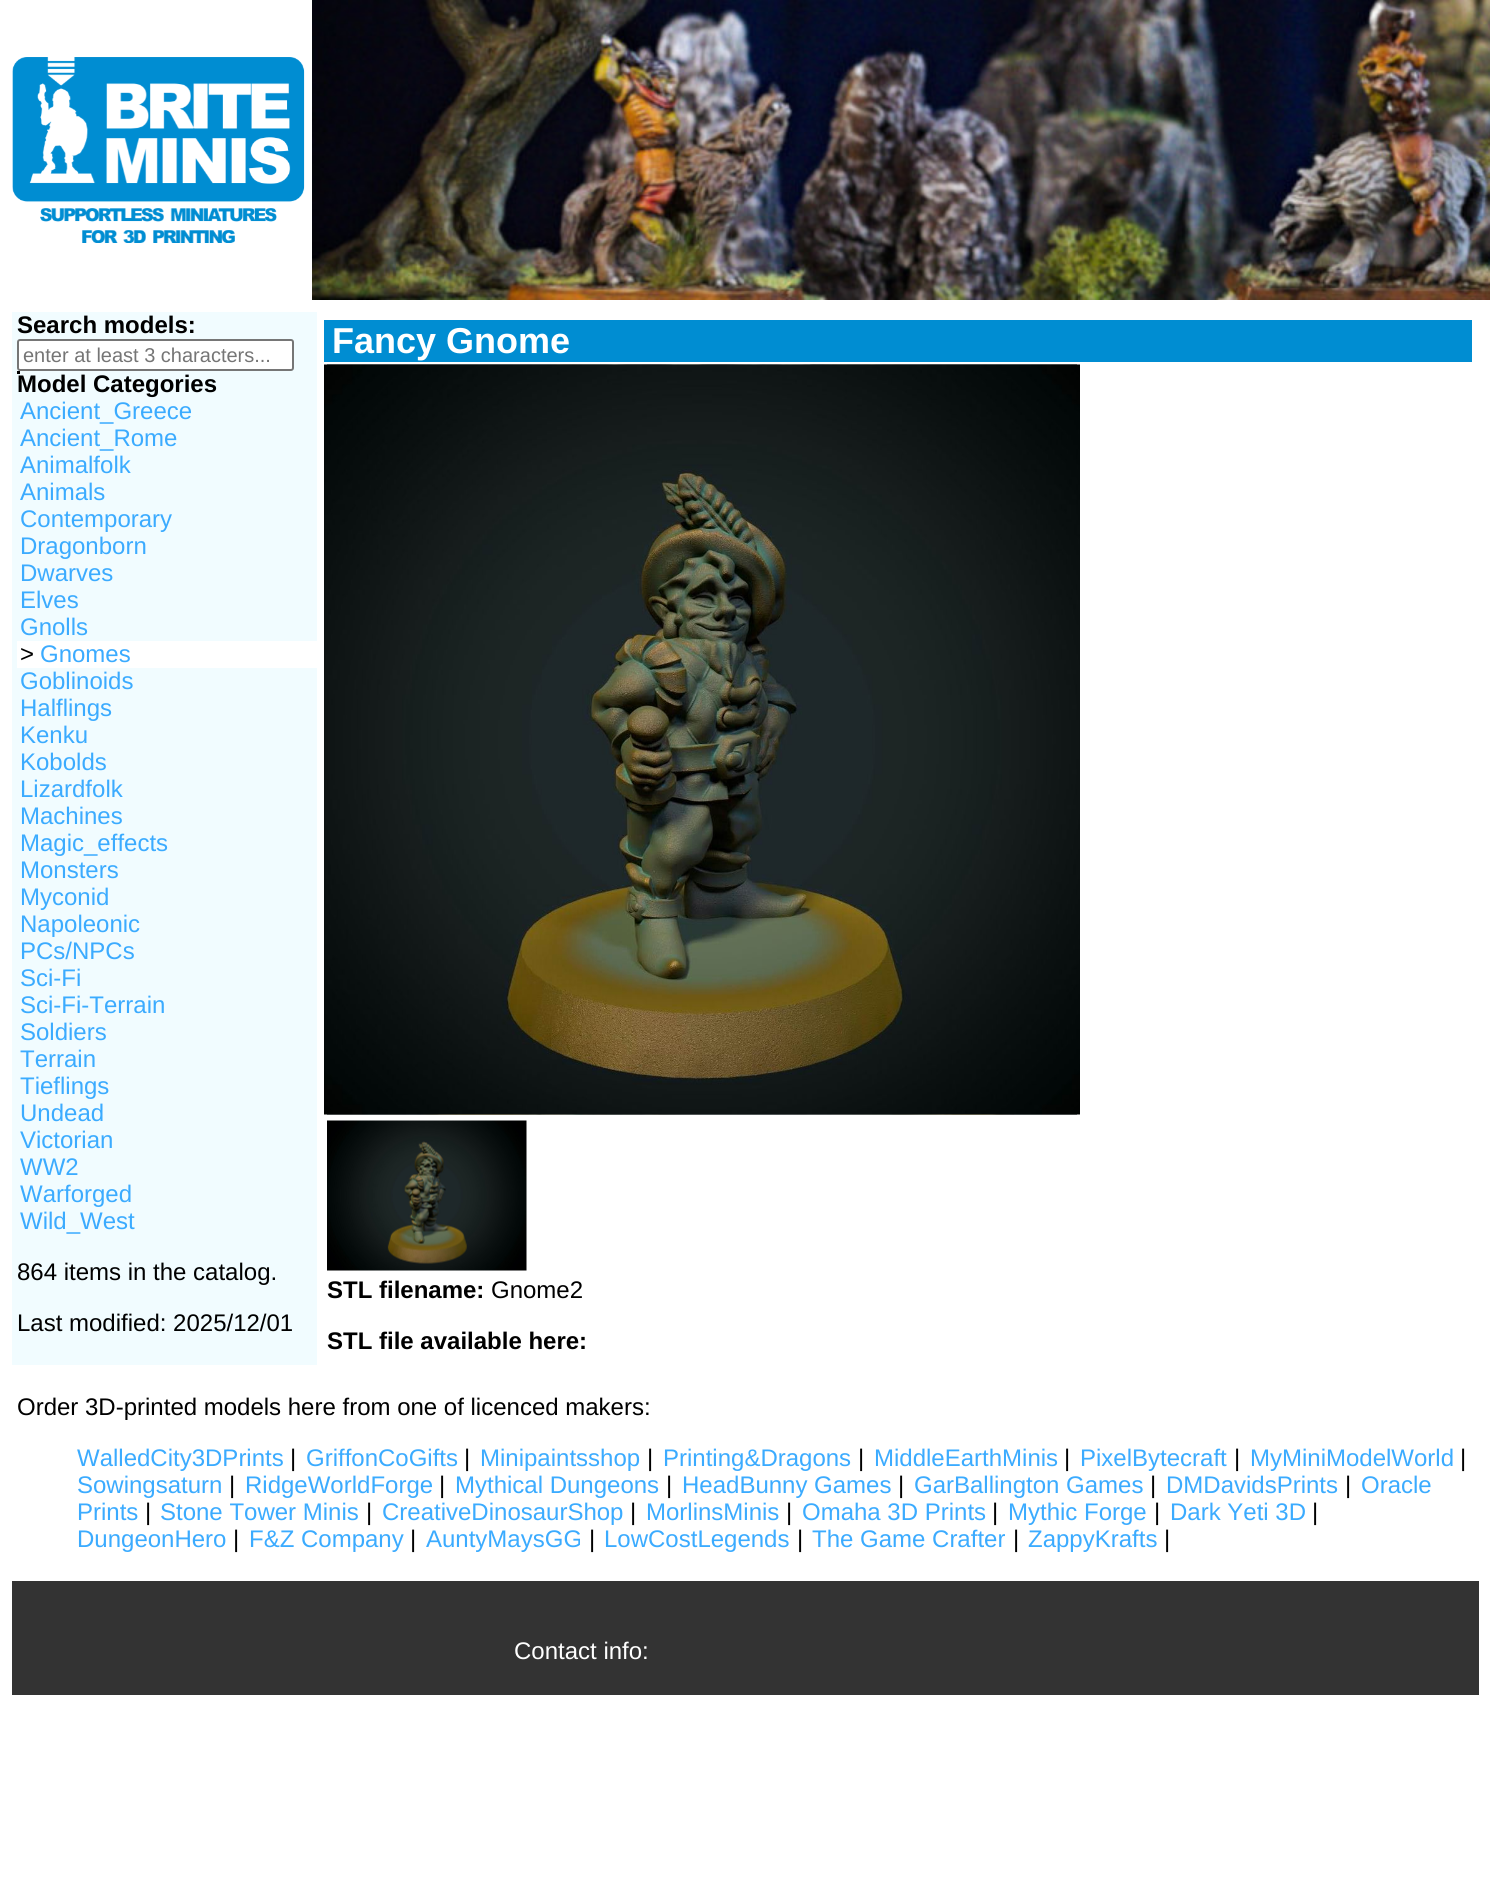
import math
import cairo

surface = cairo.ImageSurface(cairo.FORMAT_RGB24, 1490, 1904)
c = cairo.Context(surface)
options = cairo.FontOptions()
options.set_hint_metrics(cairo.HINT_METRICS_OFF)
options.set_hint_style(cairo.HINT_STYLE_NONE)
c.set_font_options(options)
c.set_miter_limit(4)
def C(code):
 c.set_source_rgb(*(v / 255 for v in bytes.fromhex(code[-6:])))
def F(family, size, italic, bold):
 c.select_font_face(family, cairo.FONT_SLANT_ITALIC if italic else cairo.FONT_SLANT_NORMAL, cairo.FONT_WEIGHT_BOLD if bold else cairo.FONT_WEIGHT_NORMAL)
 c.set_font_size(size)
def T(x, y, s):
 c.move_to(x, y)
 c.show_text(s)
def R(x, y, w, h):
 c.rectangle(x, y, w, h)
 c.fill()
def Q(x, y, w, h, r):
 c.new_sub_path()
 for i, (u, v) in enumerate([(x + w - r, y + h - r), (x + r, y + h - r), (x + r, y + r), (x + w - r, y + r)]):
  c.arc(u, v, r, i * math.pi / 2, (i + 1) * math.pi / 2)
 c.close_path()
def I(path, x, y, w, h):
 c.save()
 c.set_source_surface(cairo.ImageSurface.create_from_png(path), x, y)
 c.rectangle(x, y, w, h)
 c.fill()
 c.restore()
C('ffffff')
c.paint()
I('1.png',12,57,293,186)
I('2.png',312,0,1178,300)
C('f1fcff')
R(12,312,305,1053)
F('Liberation Sans',24,0,1)
C('000000')
T(17,333,'Search models:')
C('ffffff')
Q(18,340,275,30,2)
c.fill_preserve()
C('767676')
c.stroke()
F('Liberation Sans',20,0,0)
C('757575')
T(23,362,'enter at least 3 characters...')
C('000000')
R(17,371,3,3)
F('Liberation Sans',24,0,1)
T(17,392,'Model Categories')
F('Liberation Sans',24,0,0)
C('3babff')
T(20,419,'Ancient_Greece')
T(20,446,'Ancient_Rome')
T(20,473,'Animalfolk')
T(20,500,'Animals')
T(20,527,'Contemporary')
T(20,554,'Dragonborn')
T(20,581,'Dwarves')
T(20,608,'Elves')
T(20,635,'Gnolls')
C('ffffff')
R(17,641,300,27)
C('000000')
T(20,662,'>')
C('3babff')
T(40,662,'Gnomes')
T(20,689,'Goblinoids')
T(20,716,'Halflings')
T(20,743,'Kenku')
T(20,770,'Kobolds')
T(20,797,'Lizardfolk')
T(20,824,'Machines')
T(20,851,'Magic_effects')
T(20,878,'Monsters')
T(20,905,'Myconid')
T(20,932,'Napoleonic')
T(20,959,'PCs/NPCs')
T(20,986,'Sci-Fi')
T(20,1013,'Sci-Fi-Terrain')
T(20,1040,'Soldiers')
T(20,1067,'Terrain')
T(20,1094,'Tieflings')
T(20,1121,'Undead')
T(20,1148,'Victorian')
T(20,1175,'WW2')
T(20,1202,'Warforged')
T(20,1229,'Wild_West')
C('000000')
T(17,1280,'864 items in the catalog.')
T(17,1331,'Last modified: 2025/12/01')
C('008dd2')
R(324,320,1148,42)
F('Liberation Sans',36,0,1)
C('ffffff')
T(332,353,'Fancy Gnome')
I('3.png',327,364,750,751)
I('4.png',324,364,756,751)
I('5.png',327,1120,200,151)
F('Liberation Sans',24,0,1)
C('000000')
T(327,1298,'STL filename:')
F('Liberation Sans',24,0,0)
T(491,1298,'Gnome2')
F('Liberation Sans',24,0,1)
T(327,1349,'STL file available here:')
F('Liberation Sans',24,0,0)
T(17,1415,'Order 3D-printed models here from one of licenced makers:')
C('3babff')
T(77,1466,'WalledCity3DPrints')
C('000000')
T(290,1466,'|')
C('3babff')
T(306,1466,'GriffonCoGifts')
C('000000')
T(464,1466,'|')
C('3babff')
T(480,1466,'Minipaintsshop')
C('000000')
T(647,1466,'|')
C('3babff')
T(663,1466,'Printing&Dragons')
C('000000')
T(858,1466,'|')
C('3babff')
T(874,1466,'MiddleEarthMinis')
C('000000')
T(1064,1466,'|')
C('3babff')
T(1080,1466,'PixelBytecraft')
C('000000')
T(1234,1466,'|')
C('3babff')
T(1250,1466,'MyMiniModelWorld')
C('000000')
T(1460,1466,'|')
C('3babff')
T(77,1493,'Sowingsaturn')
C('000000')
T(229,1493,'|')
C('3babff')
T(245,1493,'RidgeWorldForge')
C('000000')
T(439,1493,'|')
C('3babff')
T(455,1493,'Mythical Dungeons')
C('000000')
T(666,1493,'|')
C('3babff')
T(682,1493,'HeadBunny Games')
C('000000')
T(898,1493,'|')
C('3babff')
T(914,1493,'GarBallington Games')
C('000000')
T(1150,1493,'|')
C('3babff')
T(1166,1493,'DMDavidsPrints')
C('000000')
T(1345,1493,'|')
C('3babff')
T(1361,1493,'Oracle')
T(77,1520,'Prints')
C('000000')
T(145,1520,'|')
C('3babff')
T(160,1520,'Stone Tower Minis')
C('000000')
T(366,1520,'|')
C('3babff')
T(382,1520,'CreativeDinosaurShop')
C('000000')
T(630,1520,'|')
C('3babff')
T(646,1520,'MorlinsMinis')
C('000000')
T(786,1520,'|')
C('3babff')
T(802,1520,'Omaha 3D Prints')
C('000000')
T(992,1520,'|')
C('3babff')
T(1008,1520,'Mythic Forge')
C('000000')
T(1154,1520,'|')
C('3babff')
T(1170,1520,'Dark Yeti 3D')
C('000000')
T(1312,1520,'|')
C('3babff')
T(77,1547,'DungeonHero')
C('000000')
T(233,1547,'|')
C('3babff')
T(249,1547,'F&Z Company')
C('000000')
T(410,1547,'|')
C('3babff')
T(426,1547,'AuntyMaysGG')
C('000000')
T(589,1547,'|')
C('3babff')
T(604,1547,'LowCostLegends')
C('000000')
T(797,1547,'|')
C('3babff')
T(812,1547,'The Game Crafter')
C('000000')
T(1013,1547,'|')
C('3babff')
T(1028,1547,'ZappyKrafts')
C('000000')
T(1164,1547,'|')
C('333333')
R(12,1581,1467,114)
C('ffffff')
T(514,1659,'Contact info:')
surface.write_to_png('o.png')
